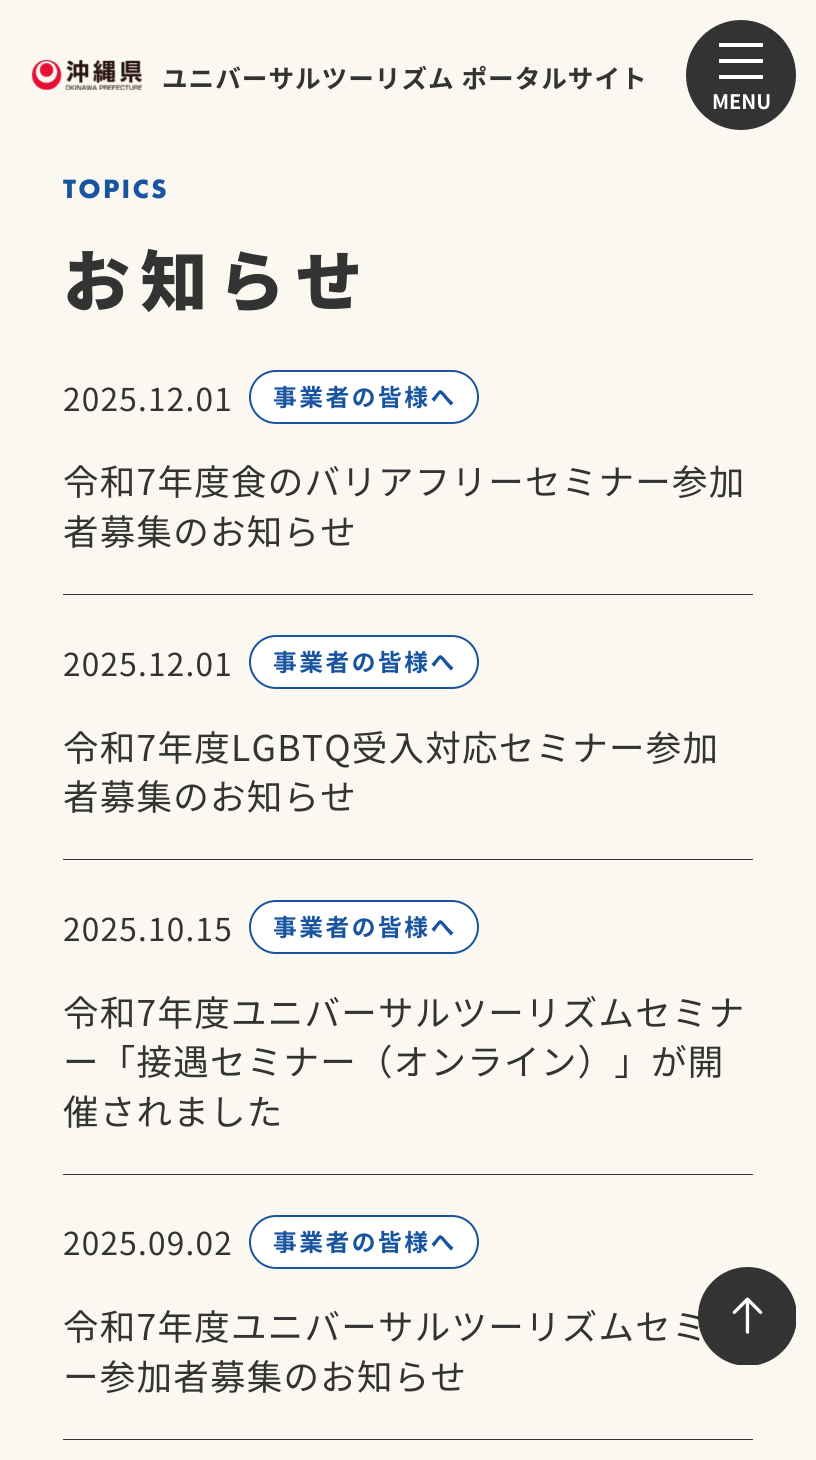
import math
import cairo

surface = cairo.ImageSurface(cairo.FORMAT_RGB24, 816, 1460)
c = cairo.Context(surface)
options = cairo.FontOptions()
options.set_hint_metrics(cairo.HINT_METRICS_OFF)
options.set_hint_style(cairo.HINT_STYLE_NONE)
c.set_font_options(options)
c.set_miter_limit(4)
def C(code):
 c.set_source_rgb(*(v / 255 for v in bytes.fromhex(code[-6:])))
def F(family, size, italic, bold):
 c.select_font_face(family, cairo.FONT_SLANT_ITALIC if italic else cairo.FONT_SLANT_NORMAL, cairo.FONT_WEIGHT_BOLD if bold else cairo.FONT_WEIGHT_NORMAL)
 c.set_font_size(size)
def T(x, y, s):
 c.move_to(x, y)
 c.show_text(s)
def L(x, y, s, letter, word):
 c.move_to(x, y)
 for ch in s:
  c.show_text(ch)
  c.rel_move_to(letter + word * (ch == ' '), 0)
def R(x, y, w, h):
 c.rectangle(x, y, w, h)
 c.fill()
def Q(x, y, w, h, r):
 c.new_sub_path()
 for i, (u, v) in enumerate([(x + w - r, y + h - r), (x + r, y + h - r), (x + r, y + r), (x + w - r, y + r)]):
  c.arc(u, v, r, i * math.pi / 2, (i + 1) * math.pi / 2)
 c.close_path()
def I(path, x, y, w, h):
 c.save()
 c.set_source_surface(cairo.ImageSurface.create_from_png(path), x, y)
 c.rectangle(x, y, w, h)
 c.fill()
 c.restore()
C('faf8f0')
c.paint()
I('1.png',31,60,111,30)
F('Noto Sans JP',25.6,0,1)
C('333333')
L(162,88,'ユニバーサルツーリズム ポータルサイト',1,0)
c.new_path()
c.arc(741,75,55,0,2 * math.pi)
c.fill()
C('ffffff')
R(719,43,44,4)
R(719,59,44,4)
R(719,75,44,4)
F('Noto Sans JP',20,0,1)
T(712,109,'MENU')
F('Futura PT',27.5,0,1)
C('18549f')
L(63,198,'TOPICS',2.25,0)
F('Noto Sans JP Black',67,0,0)
C('333333')
L(63,306,'お知らせ',10.5,0)
R(63,594,690,1)
F('Noto Sans JP',31.5,0,0)
L(63,411,'2025.12.01',1.25,0)
C('ffffff')
Q(250,371,228,52,26)
c.fill_preserve()
C('18549f')
c.stroke()
F('Noto Sans JP',23.75,0,1)
L(273,406,'事業者の皆様へ',2.5,0)
F('Noto Sans JP',35.5,0,0)
C('333333')
L(63,495,'令和7年度食のバリアフリーセミナー参加',1.25,0)
L(63,545,'者募集のお知らせ',1.25,0)
R(63,859,690,1)
F('Noto Sans JP',31.5,0,0)
L(63,676,'2025.12.01',1.25,0)
C('ffffff')
Q(250,636,228,52,26)
c.fill_preserve()
C('18549f')
c.stroke()
F('Noto Sans JP',23.75,0,1)
L(273,671,'事業者の皆様へ',2.5,0)
F('Noto Sans JP',35.5,0,0)
C('333333')
L(63,761,'令和7年度LGBTQ受入対応セミナー参加',1.25,0)
L(63,810,'者募集のお知らせ',1.25,0)
R(63,1174,690,1)
F('Noto Sans JP',31.5,0,0)
L(63,941,'2025.10.15',1.25,0)
C('ffffff')
Q(250,901,228,52,26)
c.fill_preserve()
C('18549f')
c.stroke()
F('Noto Sans JP',23.75,0,1)
L(273,936,'事業者の皆様へ',2.5,0)
F('Noto Sans JP',35.5,0,0)
C('333333')
L(63,1026,'令和7年度ユニバーサルツーリズムセミナ',1.25,0)
L(63,1075,'ー「接遇セミナー（オンライン）」が開',1.25,0)
L(63,1125,'催されました',1.25,0)
R(63,1439,690,1)
F('Noto Sans JP',31.5,0,0)
L(63,1255,'2025.09.02',1.25,0)
C('ffffff')
Q(250,1216,228,52,26)
c.fill_preserve()
C('18549f')
c.stroke()
F('Noto Sans JP',23.75,0,1)
L(273,1251,'事業者の皆様へ',2.5,0)
F('Noto Sans JP',35.5,0,0)
C('333333')
L(63,1340,'令和7年度ユニバーサルツーリズムセミ',1.25,0)
L(63,1390,'ー参加者募集のお知らせ',1.25,0)
I('2.png',698,1267,98,98)
surface.write_to_png('o.png')
